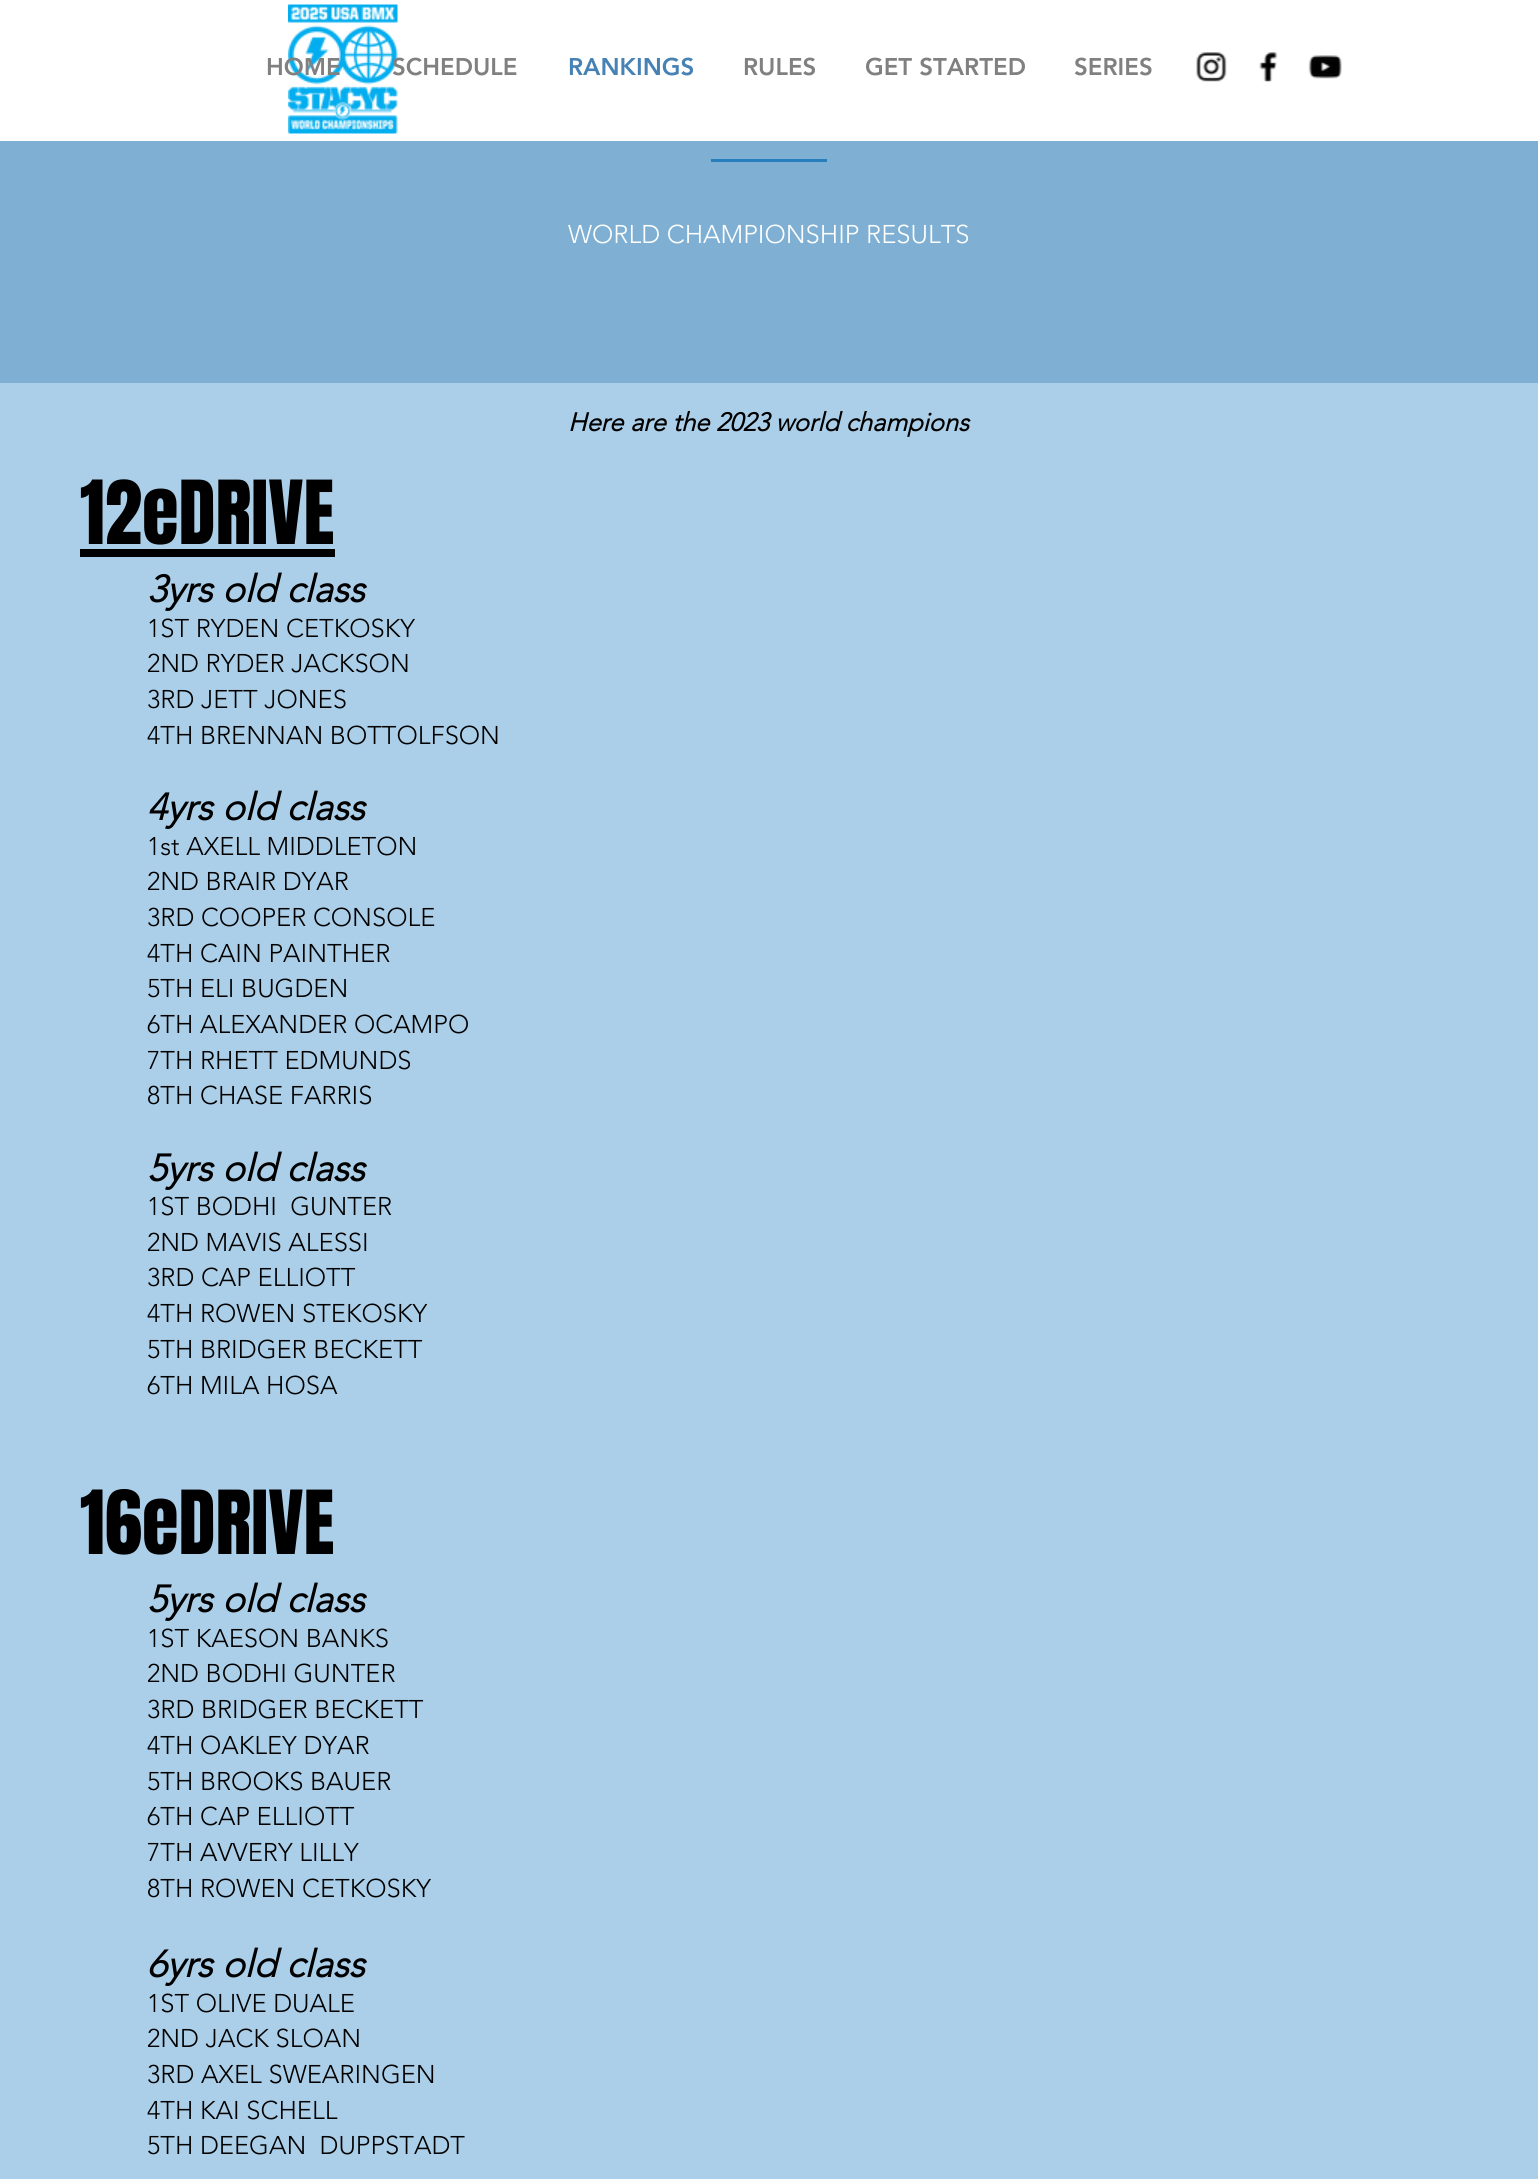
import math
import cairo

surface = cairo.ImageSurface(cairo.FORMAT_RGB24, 1538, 2179)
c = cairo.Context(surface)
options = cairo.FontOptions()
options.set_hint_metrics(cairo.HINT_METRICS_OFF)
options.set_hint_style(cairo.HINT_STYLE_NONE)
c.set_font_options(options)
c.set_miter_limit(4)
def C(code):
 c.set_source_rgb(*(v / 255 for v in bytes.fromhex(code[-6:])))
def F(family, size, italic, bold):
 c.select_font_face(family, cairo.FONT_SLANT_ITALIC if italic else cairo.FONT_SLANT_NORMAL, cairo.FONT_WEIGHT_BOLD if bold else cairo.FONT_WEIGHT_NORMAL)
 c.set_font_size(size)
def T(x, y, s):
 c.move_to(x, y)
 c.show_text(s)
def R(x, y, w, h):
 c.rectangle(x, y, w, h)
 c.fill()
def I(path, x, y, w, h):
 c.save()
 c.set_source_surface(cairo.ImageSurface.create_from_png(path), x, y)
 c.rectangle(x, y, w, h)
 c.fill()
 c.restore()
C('7fb0d3')
c.paint()
C('ffffff')
R(0,0,1538,141)
I('1.png',288,4,110,130)
F('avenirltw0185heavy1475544 Black',24,0,0)
C('808080')
T(266,75,'HOME')
T(392,75,'SCHEDULE')
C('4682b4')
T(568,75,'RANKINGS')
C('808080')
T(743,75,'RULES')
T(865,75,'GET STARTED')
T(1074,75,'SERIES')
I('2.png',1196,52,31,30)
I('3.png',1259,52,19,30)
I('4.png',1308,55,34,24)
C('267ebd')
R(711,159,116,3)
F('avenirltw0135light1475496 Light',25.5,0,0)
C('ffffff')
T(568,243,'WORLD CHAMPIONSHIP RESULTS')
C('abcfe9')
R(0,383,1538,1796)
F('avenirltw0135light1475496',25.5,1,1)
C('000000')
T(568,431,'Here are the 2023 world champions')
F('Anton',75,0,0)
T(80,544,'12eDRIVE')
R(80,549,255,8)
F('avenirltw0135light1475496',37.5,1,1)
T(147,602,'3yrs old class')
F('avenirltw0135light1475496 Light',25.5,0,0)
T(147,637,'1ST RYDEN CETKOSKY')
T(147,672,'2ND RYDER JACKSON')
T(147,708,'3RD JETT JONES')
T(147,744,'4TH BRENNAN BOTTOLFSON')
F('avenirltw0135light1475496',37.5,1,1)
T(147,820,'4yrs old class')
F('avenirltw0135light1475496 Light',25.5,0,0)
T(147,855,'1st AXELL MIDDLETON')
T(147,890,'2ND BRAIR DYAR')
T(147,926,'3RD COOPER CONSOLE')
T(147,962,'4TH CAIN PAINTHER')
T(147,997,'5TH ELI BUGDEN')
T(147,1033,'6TH ALEXANDER OCAMPO')
T(147,1069,'7TH RHETT EDMUNDS')
T(147,1104,'8TH CHASE FARRIS')
F('avenirltw0135light1475496',37.5,1,1)
T(147,1181,'5yrs old class')
F('avenirltw0135light1475496 Light',25.5,0,0)
T(147,1215,'1ST BODHI  GUNTER')
T(147,1251,'2ND MAVIS ALESSI')
T(147,1286,'3RD CAP ELLIOTT')
T(147,1322,'4TH ROWEN STEKOSKY')
T(147,1358,'5TH BRIDGER BECKETT')
T(147,1394,'6TH MILA HOSA')
F('Anton',75,0,0)
T(80,1554,'16eDRIVE')
F('avenirltw0135light1475496',37.5,1,1)
T(147,1612,'5yrs old class')
F('avenirltw0135light1475496 Light',25.5,0,0)
T(147,1647,'1ST KAESON BANKS')
T(147,1682,'2ND BODHI GUNTER')
T(147,1718,'3RD BRIDGER BECKETT')
T(147,1754,'4TH OAKLEY DYAR')
T(147,1790,'5TH BROOKS BAUER')
T(147,1825,'6TH CAP ELLIOTT')
T(147,1861,'7TH AVVERY LILLY')
T(147,1897,'8TH ROWEN CETKOSKY')
F('avenirltw0135light1475496',37.5,1,1)
T(147,1977,'6yrs old class')
F('avenirltw0135light1475496 Light',25.5,0,0)
T(147,2012,'1ST OLIVE DUALE')
T(147,2047,'2ND JACK SLOAN')
T(147,2083,'3RD AXEL SWEARINGEN')
T(147,2119,'4TH KAI SCHELL')
T(147,2154,'5TH DEEGAN  DUPPSTADT')
surface.write_to_png('o.png')
